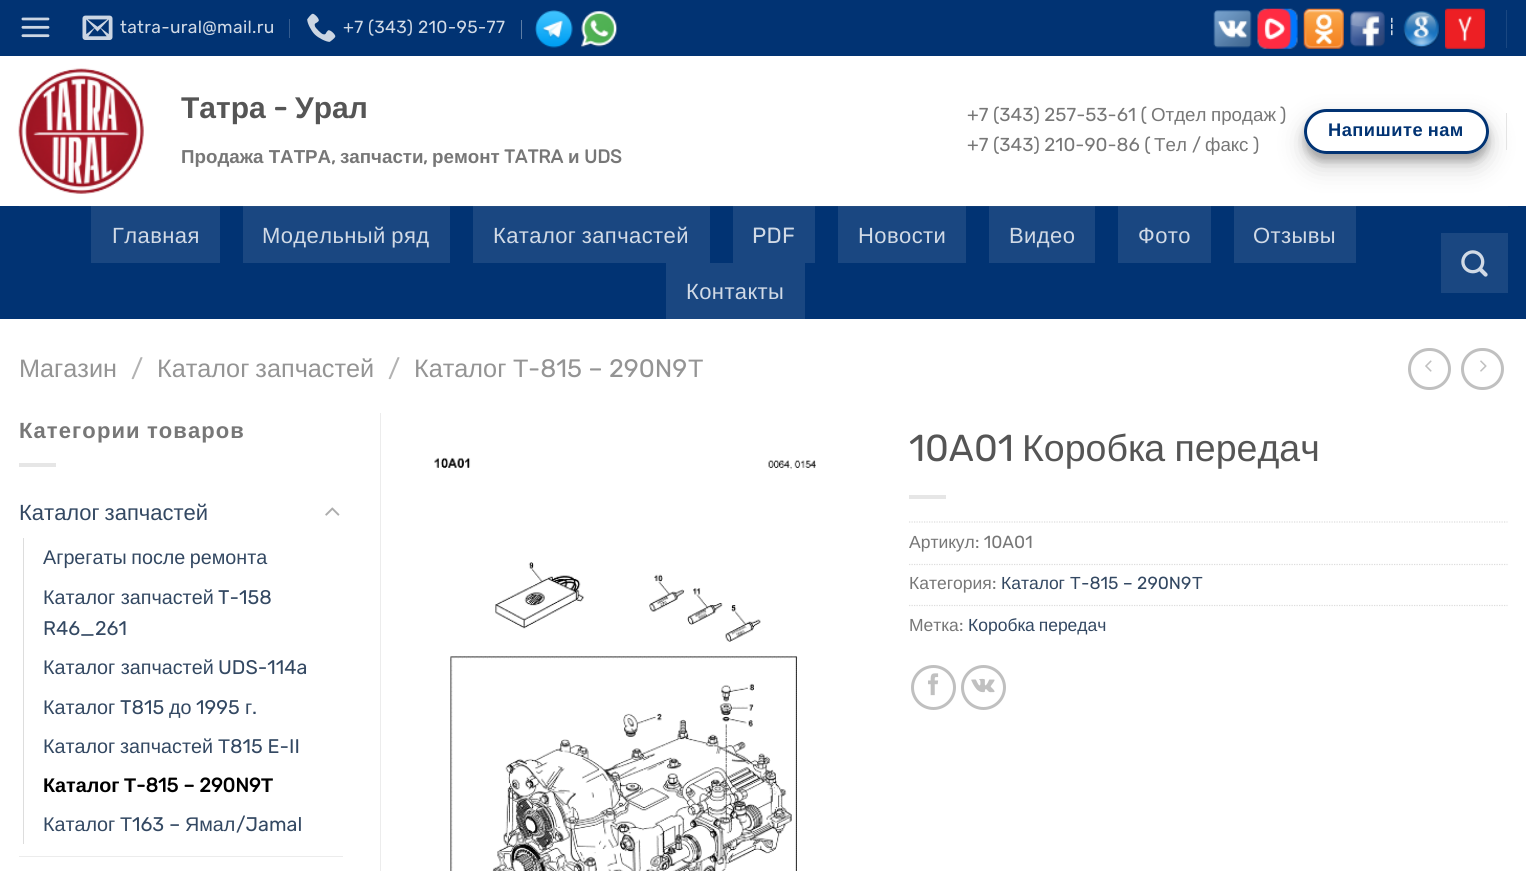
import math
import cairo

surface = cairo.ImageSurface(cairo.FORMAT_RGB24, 1526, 871)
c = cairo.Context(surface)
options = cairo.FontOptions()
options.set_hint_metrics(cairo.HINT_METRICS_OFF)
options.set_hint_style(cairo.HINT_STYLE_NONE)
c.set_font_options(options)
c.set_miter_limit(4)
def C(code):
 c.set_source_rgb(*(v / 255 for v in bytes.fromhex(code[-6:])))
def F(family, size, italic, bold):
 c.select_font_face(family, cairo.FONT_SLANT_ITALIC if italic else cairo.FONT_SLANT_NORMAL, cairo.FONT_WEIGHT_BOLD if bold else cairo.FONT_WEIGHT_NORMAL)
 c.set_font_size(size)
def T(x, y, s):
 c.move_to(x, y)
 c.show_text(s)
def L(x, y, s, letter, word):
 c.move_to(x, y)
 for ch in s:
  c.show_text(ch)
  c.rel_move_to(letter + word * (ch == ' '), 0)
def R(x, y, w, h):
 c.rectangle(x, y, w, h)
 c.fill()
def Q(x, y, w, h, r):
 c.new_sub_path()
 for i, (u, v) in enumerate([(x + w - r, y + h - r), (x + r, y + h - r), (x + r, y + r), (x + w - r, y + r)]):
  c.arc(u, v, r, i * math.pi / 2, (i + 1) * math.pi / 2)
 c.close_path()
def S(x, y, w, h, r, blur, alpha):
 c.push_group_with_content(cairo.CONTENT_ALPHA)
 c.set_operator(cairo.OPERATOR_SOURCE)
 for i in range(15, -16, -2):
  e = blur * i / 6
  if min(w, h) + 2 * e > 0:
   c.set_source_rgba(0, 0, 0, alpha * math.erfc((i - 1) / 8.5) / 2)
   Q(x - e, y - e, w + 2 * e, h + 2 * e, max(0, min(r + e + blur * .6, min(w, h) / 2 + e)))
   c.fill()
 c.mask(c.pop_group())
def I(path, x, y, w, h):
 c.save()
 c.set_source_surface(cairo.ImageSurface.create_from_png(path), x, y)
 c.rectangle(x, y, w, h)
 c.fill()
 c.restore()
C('ffffff')
c.paint()
C('013373')
R(0,0,1526,56)
I('1.png',21,17,29,21)
I('2.png',82,15,31,25)
F('Rubik',17.5,0,0)
C('d1dae6')
L(120,33,'tatra-ural@mail.ru',.3,0)
C('345c8f')
R(289,19,1,19)
I('3.png',307,13,29,29)
C('d1dae6')
L(343,33,'+7 (343) 210-95-77',.3,0)
C('5d7da5')
R(521,20,1,19)
I('4.png',581,10,37,38)
I('5.png',535,10,38,38)
I('6.png',1213,10,39,38)
I('7.png',1257,8,41,41)
I('8.png',1303,8,41,41)
I('9.png',1350,11,35,36)
F('DejaVu Sans',16,0,0)
C('ffffff')
T(1387,32,'┆')
I('10.png',1403,11,37,37)
I('11.png',1445,8,40,41)
C('1a4781')
R(1506,10,1,38)
I('12.png',18,68,126,126)
F('Liberation Sans',30,0,1)
C('555555')
T(181,118,'Татра')
F('Rubik',30,0,1)
T(273,118,'-')
F('Liberation Sans',30,0,1)
T(295,118,'Урал')
F('Liberation Sans',18.75,0,1)
C('777777')
T(181,163,'Продажа ТАТРА')
F('Rubik',18.75,0,1)
T(331,163,',')
F('Liberation Sans',18.75,0,1)
T(340,163,'запчасти')
F('Rubik',18.75,0,1)
T(423,163,',')
F('Liberation Sans',18.75,0,1)
T(432,163,'ремонт')
F('Rubik',18.75,0,1)
T(504,163,'TATRA')
F('Liberation Sans',18.75,0,1)
T(568,163,'и')
F('Rubik',18.75,0,1)
T(584,163,'UDS')
F('Rubik',18.75,0,0)
T(967,121,'+7 (343) 257-53-61 (')
F('Liberation Sans',18.75,0,0)
T(1151,121,'Отдел')
T(1211,121,'продаж')
F('Rubik',18.75,0,0)
T(1280,121,')')
T(967,151,'+7 (343) 210-90-86 (')
F('Liberation Sans',18.75,0,0)
T(1154,151,'Тел')
F('Rubik',18.75,0,0)
T(1192,151,'/')
F('Liberation Sans',18.75,0,0)
T(1205,151,'факс')
F('Rubik',18.75,0,0)
T(1253,151,')')
c.save()
c.set_fill_rule(cairo.FILL_RULE_EVEN_ODD)
c.new_path()
c.move_to(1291,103)
c.line_to(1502,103)
c.line_to(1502,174)
c.line_to(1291,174)
c.close_path()
c.move_to(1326.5,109)
c.line_to(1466.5,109)
c.curve_to(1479,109,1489,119,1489,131.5)
c.curve_to(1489,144,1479,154,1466.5,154)
c.line_to(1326.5,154)
c.curve_to(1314,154,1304,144,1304,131.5)
c.curve_to(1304,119,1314,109,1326.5,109)
c.close_path()
c.clip()
C('000000')
S(1304,116,185,45,22.5,4,.22)
c.restore()
c.save()
c.set_fill_rule(cairo.FILL_RULE_EVEN_ODD)
c.new_path()
c.move_to(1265,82)
c.line_to(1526,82)
c.line_to(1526,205)
c.line_to(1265,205)
c.close_path()
c.move_to(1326.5,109)
c.line_to(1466.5,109)
c.curve_to(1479,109,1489,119,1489,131.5)
c.curve_to(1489,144,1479,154,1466.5,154)
c.line_to(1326.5,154)
c.curve_to(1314,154,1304,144,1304,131.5)
c.curve_to(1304,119,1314,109,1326.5,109)
c.close_path()
c.clip()
C('000000')
S(1304,121,185,45,22.5,12.5,.19)
c.restore()
Q(1305.5,110.5,182,42,21)
C('013373')
c.set_line_width(3)
c.stroke()
F('Liberation Sans',18.25,0,1)
L(1328,136,'Напишите нам',.5,-1)
C('e4e4e4')
R(1506,113,1,37)
C('013373')
R(0,206,1526,113)
C('0d3a73')
R(19,206,1489,1)
C('1a4781')
R(91,207,129,56)
C('234c80')
R(91,206,129,1)
F('Liberation Sans',22,0,0)
C('d1dae6')
L(112,243,'Главная',.4,0)
C('1a4781')
R(243,207,207,56)
C('234c80')
R(243,206,207,1)
C('d1dae6')
L(262,243,'Модельный ряд',.4,-1)
C('1a4781')
R(473,207,237,56)
C('234c80')
R(473,206,237,1)
C('d1dae6')
L(493,243,'Каталог запчастей',.4,-1)
C('1a4781')
R(733,207,82,56)
C('234c80')
R(733,206,82,1)
F('Rubik',22,0,0)
C('d1dae6')
L(752,243,'PDF',.4,0)
C('1a4781')
R(838,207,128,56)
C('234c80')
R(838,206,128,1)
F('Liberation Sans',22,0,0)
C('d1dae6')
L(858,243,'Новости',.4,0)
C('1a4781')
R(989,207,106,56)
C('234c80')
R(989,206,106,1)
C('d1dae6')
L(1009,243,'Видео',.4,0)
C('1a4781')
R(1118,207,93,56)
C('234c80')
R(1118,206,93,1)
C('d1dae6')
L(1138,243,'Фото',.4,0)
C('1a4781')
R(1234,207,122,56)
C('234c80')
R(1234,206,122,1)
C('d1dae6')
L(1253,243,'Отзывы',.4,0)
C('1a4781')
R(666,263,139,56)
C('d1dae6')
L(686,299,'Контакты',.4,0)
C('1a4781')
R(1441,233,67,60)
I('13.png',1461,250,27,27)
F('Liberation Sans',25.25,0,0)
C('949494')
T(19,377,'Магазин')
F('Rubik',25.25,0,0)
C('b2b2b2')
T(131,377,'/')
F('Liberation Sans',25.25,0,0)
C('949494')
L(157,377,'Каталог запчастей',0,-1)
F('Rubik',25.25,0,0)
C('b2b2b2')
T(388,377,'/')
F('Liberation Sans',25.25,0,0)
C('949494')
T(414,377,'Каталог')
T(513,377,'Т')
F('Rubik',25.25,0,0)
T(528,377,'-815 – 290N9')
F('Liberation Sans',25.25,0,0)
T(688,377,'Т')
Q(1409.5,349.5,40,39,19.5)
C('c0c0c0')
c.stroke()
I('14.png',1425,360,7,12)
Q(1462.5,349.5,40,39,19.5)
c.stroke()
I('15.png',1480,360,7,12)
C('ececec')
R(380,413,1,458)
F('Liberation Sans',22,0,1)
C('777777')
L(19,438,'Категории товаров',1.1,-1)
C('e6e6e6')
R(19,463,37,4)
F('Liberation Sans',22,0,0)
C('334862')
L(19,520,'Каталог запчастей',0,-1)
I('16.png',325,507,15,9)
C('dddddd')
R(23,538,1,306)
F('Liberation Sans',19.75,0,0)
C('334862')
L(43,564,'Агрегаты после ремонта',0,-1)
T(43,604,'Каталог запчастей')
F('Rubik',19.75,0,0)
T(218,604,'T-158')
T(43,635,'R46_261')
F('Liberation Sans',19.75,0,0)
T(43,674,'Каталог запчастей')
F('Rubik',19.75,0,0)
T(218,674,'UDS-114a')
F('Liberation Sans',19.75,0,0)
T(43,714,'Каталог')
F('Rubik',19.75,0,0)
T(120,714,'T815')
F('Liberation Sans',19.75,0,0)
T(169,714,'до')
F('Rubik',19.75,0,0)
T(196,714,'1995')
F('Liberation Sans',19.75,0,0)
T(245,714,'г')
F('Rubik',19.75,0,0)
T(252,714,'.')
F('Liberation Sans',19.75,0,0)
T(43,753,'Каталог')
T(120,753,'запчастей')
T(218,753,'Т')
F('Rubik',19.75,0,0)
T(230,753,'815 E-II')
F('Liberation Sans',19.75,0,1)
C('000000')
T(43,792,'Каталог')
T(124,792,'Т')
F('Rubik',19.75,0,1)
T(136,792,'-815 – 290N9')
F('Liberation Sans',19.75,0,1)
T(261,792,'Т')
F('Liberation Sans',19.75,0,0)
C('334862')
T(43,831,'Каталог')
T(120,831,'Т')
F('Rubik',19.75,0,0)
T(132,831,'163 –')
F('Liberation Sans',19.75,0,0)
T(185,831,'Ямал')
F('Rubik',19.75,0,0)
T(236,831,'/Jamal')
C('ececec')
R(19,856,324,1)
I('17.png',434,457,382,414)
F('Rubik',37.5,0,0)
C('555555')
T(909,461,'10A01')
F('Liberation Sans',37.5,0,0)
L(1022,461,'Коробка передач',0,-1)
C('e6e6e6')
R(909,495,37,4)
c.new_path()
c.move_to(909,522)
c.line_to(1507.5,522)
C('dddddd')
c.set_line_width(1.2)
c.set_dash([1.25,1.25])
c.stroke()
F('Liberation Sans',17.5,0,0)
C('777777')
T(909,548,'Артикул')
F('Rubik',17.5,0,0)
T(975,548,': 10A01')
c.new_path()
c.move_to(909,564.5)
c.line_to(1507.5,564.5)
C('dddddd')
c.stroke()
F('Liberation Sans',17.5,0,0)
C('777777')
T(909,589,'Категория')
F('Rubik',17.5,0,0)
T(992,589,':')
F('Liberation Sans',17.5,0,0)
C('334862')
T(1001,589,'Каталог')
T(1070,589,'Т')
F('Rubik',17.5,0,0)
T(1081,589,'-815 – 290N9')
F('Liberation Sans',17.5,0,0)
T(1192,589,'Т')
c.new_path()
c.move_to(909,605.5)
c.line_to(1507.5,605.5)
C('dddddd')
c.stroke()
C('777777')
T(909,631,'Метка')
F('Rubik',17.5,0,0)
T(959,631,':')
F('Liberation Sans',17.5,0,0)
C('334862')
L(968,631,'Коробка передач',0,-1)
c.new_path()
c.arc(933.5,687.5,21,0,2 * math.pi)
C('c0c0c0')
c.set_line_width(3)
c.set_dash([])
c.stroke()
I('18.png',928,673,11,23)
c.arc(983.5,687.5,21,0,2 * math.pi)
c.stroke()
I('19.png',971,678,24,15)
surface.write_to_png('o.png')
